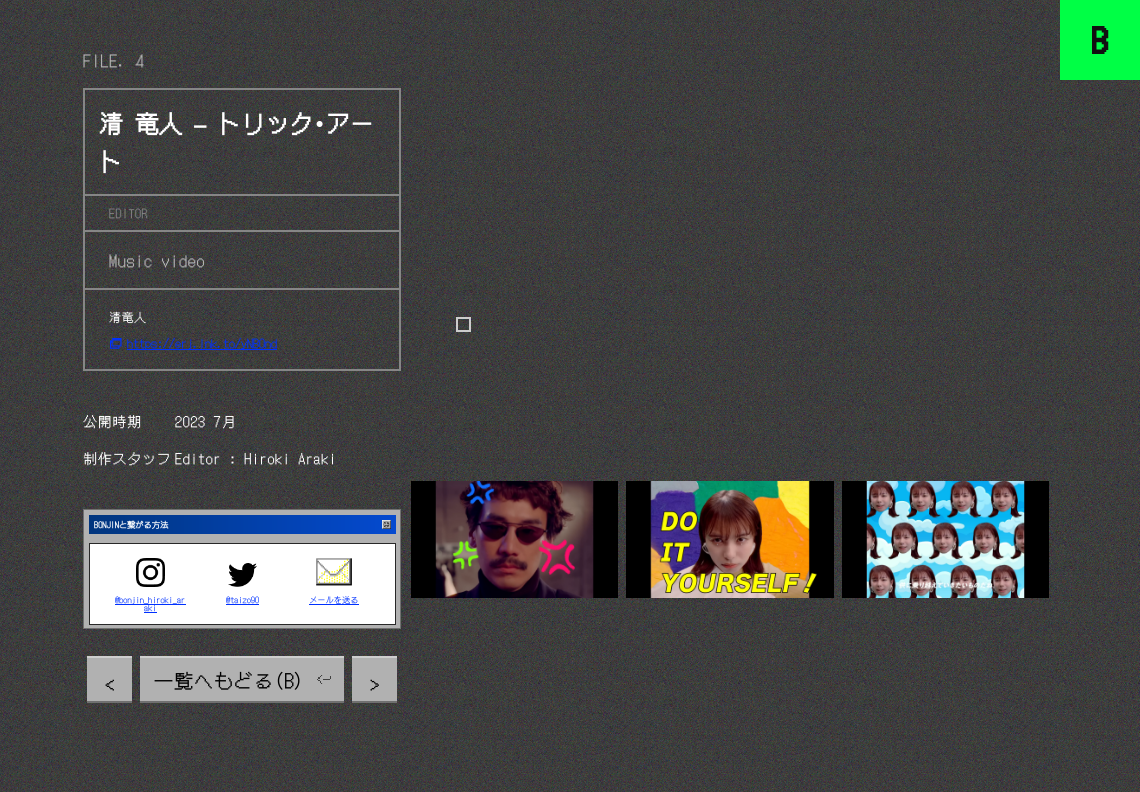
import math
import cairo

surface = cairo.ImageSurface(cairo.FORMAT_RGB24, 1140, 792)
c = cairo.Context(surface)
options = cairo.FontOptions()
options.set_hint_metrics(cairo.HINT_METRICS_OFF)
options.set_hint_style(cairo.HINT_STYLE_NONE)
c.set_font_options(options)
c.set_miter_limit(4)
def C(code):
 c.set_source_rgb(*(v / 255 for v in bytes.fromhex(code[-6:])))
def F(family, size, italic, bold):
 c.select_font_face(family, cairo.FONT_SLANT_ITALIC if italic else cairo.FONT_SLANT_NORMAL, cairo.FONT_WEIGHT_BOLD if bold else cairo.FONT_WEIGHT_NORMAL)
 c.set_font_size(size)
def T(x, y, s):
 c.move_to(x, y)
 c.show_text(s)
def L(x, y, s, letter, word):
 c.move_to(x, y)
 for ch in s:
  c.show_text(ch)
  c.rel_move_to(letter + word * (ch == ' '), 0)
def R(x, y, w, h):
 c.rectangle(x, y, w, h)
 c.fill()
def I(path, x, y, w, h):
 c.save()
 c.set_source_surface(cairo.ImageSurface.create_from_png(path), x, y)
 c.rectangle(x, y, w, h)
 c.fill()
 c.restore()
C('282828')
c.paint()
I('1.png',0,0,1140,792)
C('00ff45')
R(1060,0,80,80)
I('2.png',1092,26,17,28)
F('DotGothic16',16,0,0)
C('b1b1b1')
L(83,67,'FILE. 4',.75,0)
c.rectangle(84,89,316,281)
C('868686')
c.stroke()
R(85,194,314,2)
F('DotGothic16',23.75,0,1)
C('ffffff')
T(99,133,'清 竜人 – トリック')
F('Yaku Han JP',23.75,0,1)
T(313,133,'・')
F('DotGothic16',23.75,0,1)
T(326,133,'アー')
T(99,171,'ト')
C('868686')
R(85,230,314,2)
F('DotGothic16',12,0,0)
L(109,218,'EDITOR',.5,0)
R(85,288,314,2)
F('DotGothic16',16,0,0)
C('b1b1b1')
L(109,267,'Music video',.75,0)
F('DotGothic16',12,0,0)
C('ffffff')
L(109,322,'清竜人',.5,0)
I('3.png',110,338,12,11)
C('0031ff')
R(127,349,150,1)
T(127,348,'https://erj.lnk.to/yNBOnd')
F('DotGothic16',14,0,0)
C('ffffff')
L(83,427,'公開時期',.7,0)
L(175,427,'2023 7月',.7,0)
L(83,464,'制作スタッフ',.7,0)
L(175,464,'Editor : Hiroki Araki',.7,0)
C('b1b1b1')
c.rectangle(83.5,509.5,317,119)
c.fill_preserve()
C('707070')
c.set_line_width(1)
c.stroke()
gradient = cairo.LinearGradient(89,525,396,525)
gradient.add_color_stop_rgba(0,0,0.208,0.494,1)
gradient.add_color_stop_rgba(1,0.016,0.29,0.816,1)
c.set_source(gradient)
R(89,515,307,19)
F('DotGothic16',8.25,0,1)
C('ffffff')
T(94,528,'BONJINと繋がる方法')
I('4.png',382,520,9,9)
c.rectangle(89.5,543.5,306,81)
c.fill_preserve()
C('282828')
c.stroke()
I('5.png',136,558,29,29)
F('DotGothic16',8.25,0,0)
C('0031ff')
T(115,603,'@bonjin_hiroki_ar')
R(115,604,71,1)
T(144,611,'aki')
R(144,612,13,1)
I('6.png',228,563,29,24)
T(226,603,'@taizo90')
R(226,604,33,1)
I('7.png',316,558,36,28)
T(309,603,'メールを送る')
R(309,604,50,1)
C('b1b1b1')
R(87,658,45,43)
C('cecece')
R(87,656,45,2)
C('707070')
R(87,701,45,2)
F('DotGothic16',19,0,0)
C('000000')
L(105,690,'<',1,0)
C('b1b1b1')
R(140,658,204,43)
C('cecece')
R(140,656,204,2)
C('707070')
R(140,701,204,2)
C('000000')
L(154,688,'一覧へもどる B',1,0)
F('Yaku Han JP',19,0,0)
L(274,688,'（',1,0)
L(294,688,'）',1,0)
I('8.png',317,675,14,9)
C('b1b1b1')
R(352,658,45,43)
C('cecece')
R(352,656,45,2)
C('707070')
R(352,701,45,2)
F('DotGothic16',19,0,0)
C('000000')
L(370,690,'>',1,0)
I('9.png',411,481,207,117)
I('10.png',626,481,208,117)
I('11.png',842,481,207,117)
c.rectangle(457,318,13,13)
C('cccccc')
c.set_line_width(2)
c.stroke()
surface.write_to_png('o.png')
